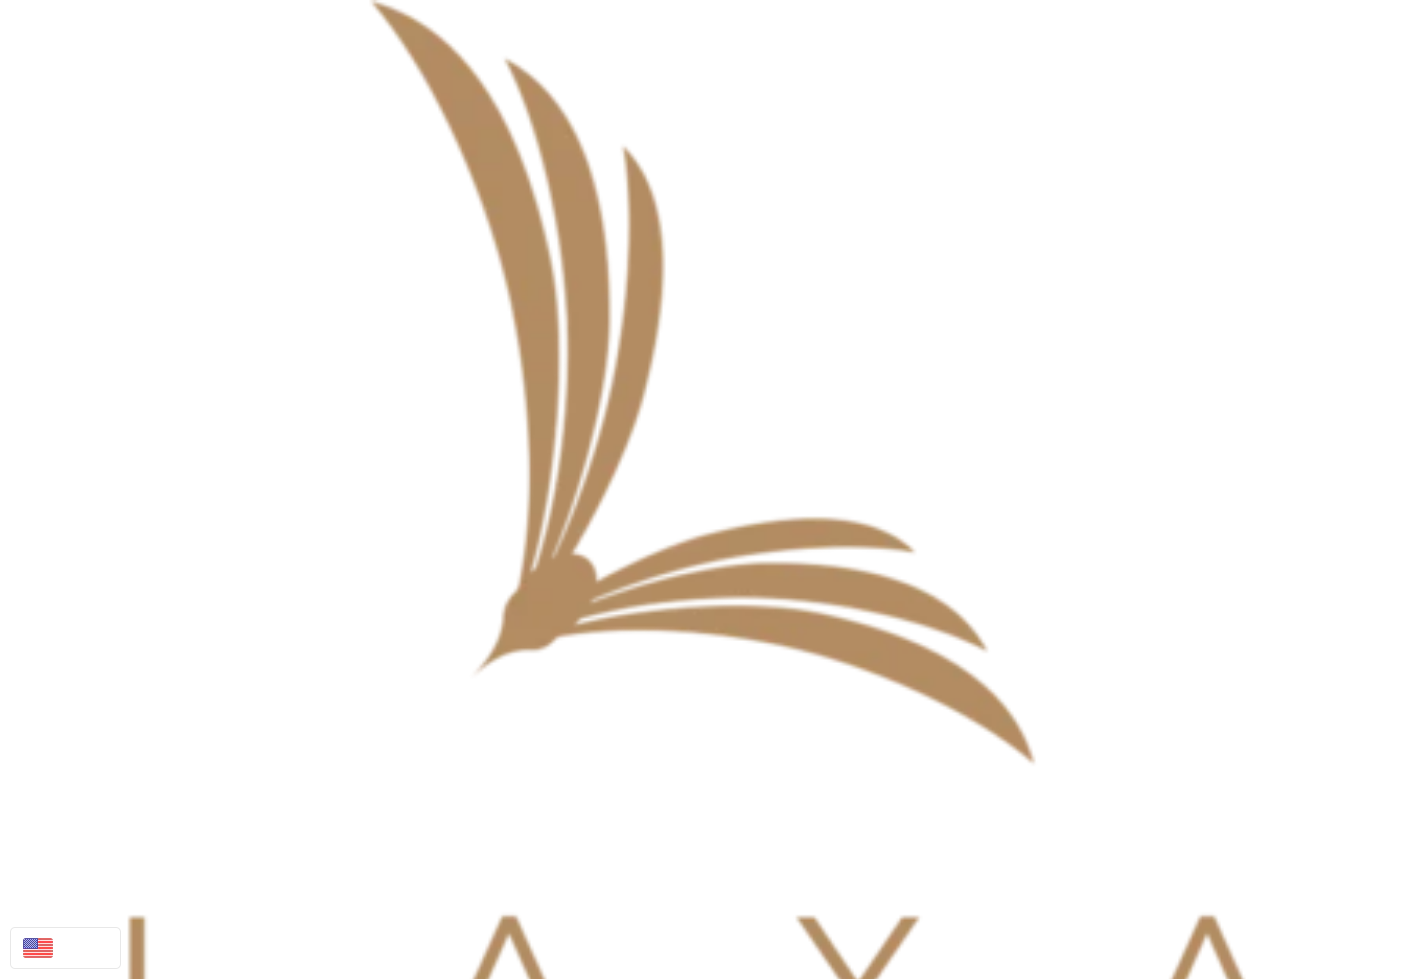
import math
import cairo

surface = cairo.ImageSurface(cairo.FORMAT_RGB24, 1411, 979)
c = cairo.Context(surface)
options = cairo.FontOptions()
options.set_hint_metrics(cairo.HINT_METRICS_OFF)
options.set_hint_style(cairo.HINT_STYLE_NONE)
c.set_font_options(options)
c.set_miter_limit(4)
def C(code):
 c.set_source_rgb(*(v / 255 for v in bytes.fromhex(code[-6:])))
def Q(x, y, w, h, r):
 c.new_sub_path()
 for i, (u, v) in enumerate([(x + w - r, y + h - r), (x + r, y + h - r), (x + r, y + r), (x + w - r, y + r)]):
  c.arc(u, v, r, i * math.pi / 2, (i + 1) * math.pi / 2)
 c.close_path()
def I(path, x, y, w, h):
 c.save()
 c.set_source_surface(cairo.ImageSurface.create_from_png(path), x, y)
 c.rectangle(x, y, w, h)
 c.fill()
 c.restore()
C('ffffff')
c.paint()
Q(10.5,927.5,110,41,4.5)
C('e8e8e8')
c.set_line_width(1)
c.stroke()
I('1.png',23,938,30,20)
I('2.png',127,0,1119,979)
surface.write_to_png('o.png')
